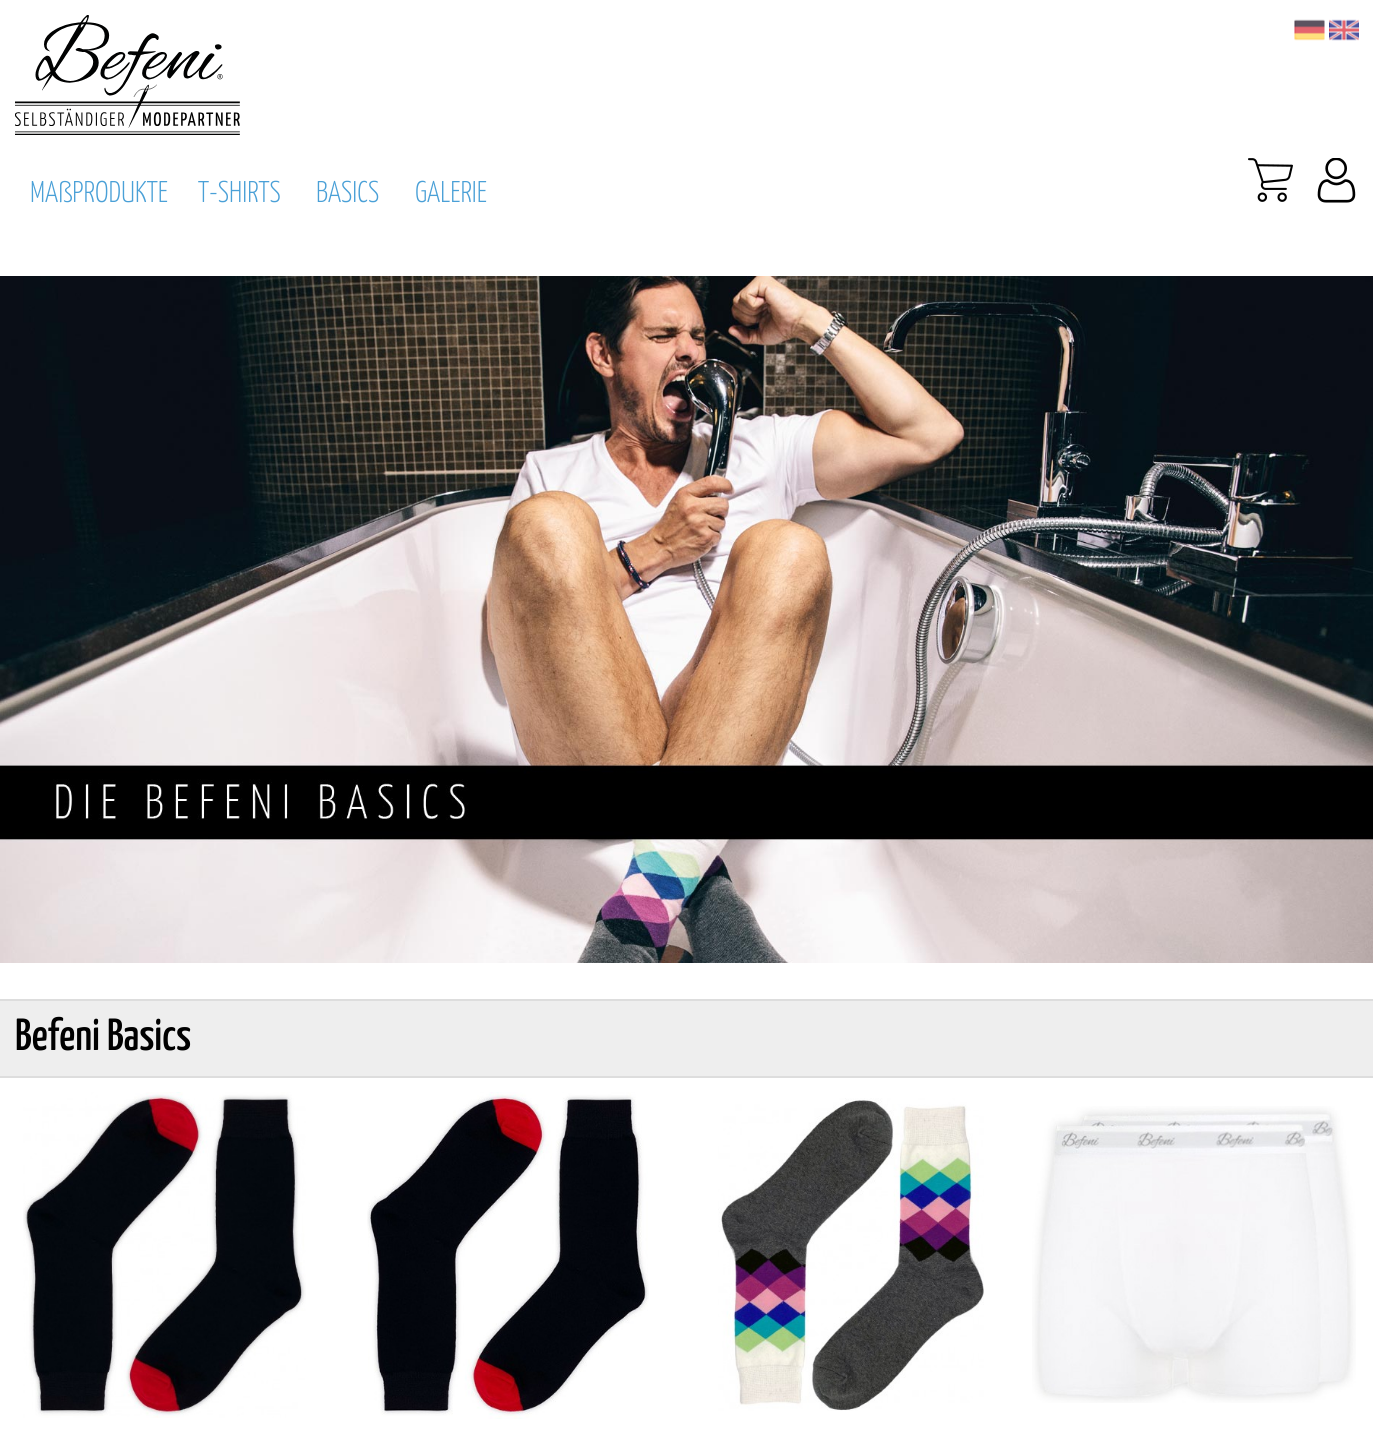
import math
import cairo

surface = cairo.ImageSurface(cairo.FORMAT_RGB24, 1373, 1450)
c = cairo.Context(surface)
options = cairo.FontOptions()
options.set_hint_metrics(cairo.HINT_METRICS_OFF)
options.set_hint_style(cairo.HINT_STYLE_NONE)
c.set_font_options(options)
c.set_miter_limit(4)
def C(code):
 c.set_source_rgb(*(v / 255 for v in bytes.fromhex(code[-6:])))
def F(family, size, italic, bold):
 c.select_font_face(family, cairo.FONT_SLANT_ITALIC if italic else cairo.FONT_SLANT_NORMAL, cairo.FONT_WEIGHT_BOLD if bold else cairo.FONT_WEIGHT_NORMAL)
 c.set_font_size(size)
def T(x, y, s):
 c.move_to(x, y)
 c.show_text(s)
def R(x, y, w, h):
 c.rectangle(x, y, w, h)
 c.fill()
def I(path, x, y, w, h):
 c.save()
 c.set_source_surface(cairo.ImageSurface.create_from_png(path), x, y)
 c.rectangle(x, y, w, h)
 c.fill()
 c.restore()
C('ffffff')
c.paint()
I('1.png',15,15,225,120)
I('2.png',1294,19,31,22)
I('3.png',1329,19,30,22)
F('Yanone Kaffeesatz Light',30,0,0)
C('4aa0d7')
T(30,202,'MAßPRODUKTE')
T(198,202,'T-SHIRTS')
T(316,202,'BASICS')
T(415,202,'GALERIE')
I('4.png',1248,158,45,44)
I('5.png',1317,158,39,45)
I('6.png',0,276,1373,687)
C('eeeeee')
R(0,1001,1373,75)
C('dddddd')
R(0,999,1373,2)
R(0,1076,1373,2)
F('Yanone Kaffeesatz Medium',45,0,0)
C('000000')
T(15,1050,'Befeni Basics')
I('7.png',23,1092,283,326)
I('8.png',367,1092,282,327)
I('9.png',718,1098,266,313)
I('10.png',1032,1106,324,297)
surface.write_to_png('o.png')
